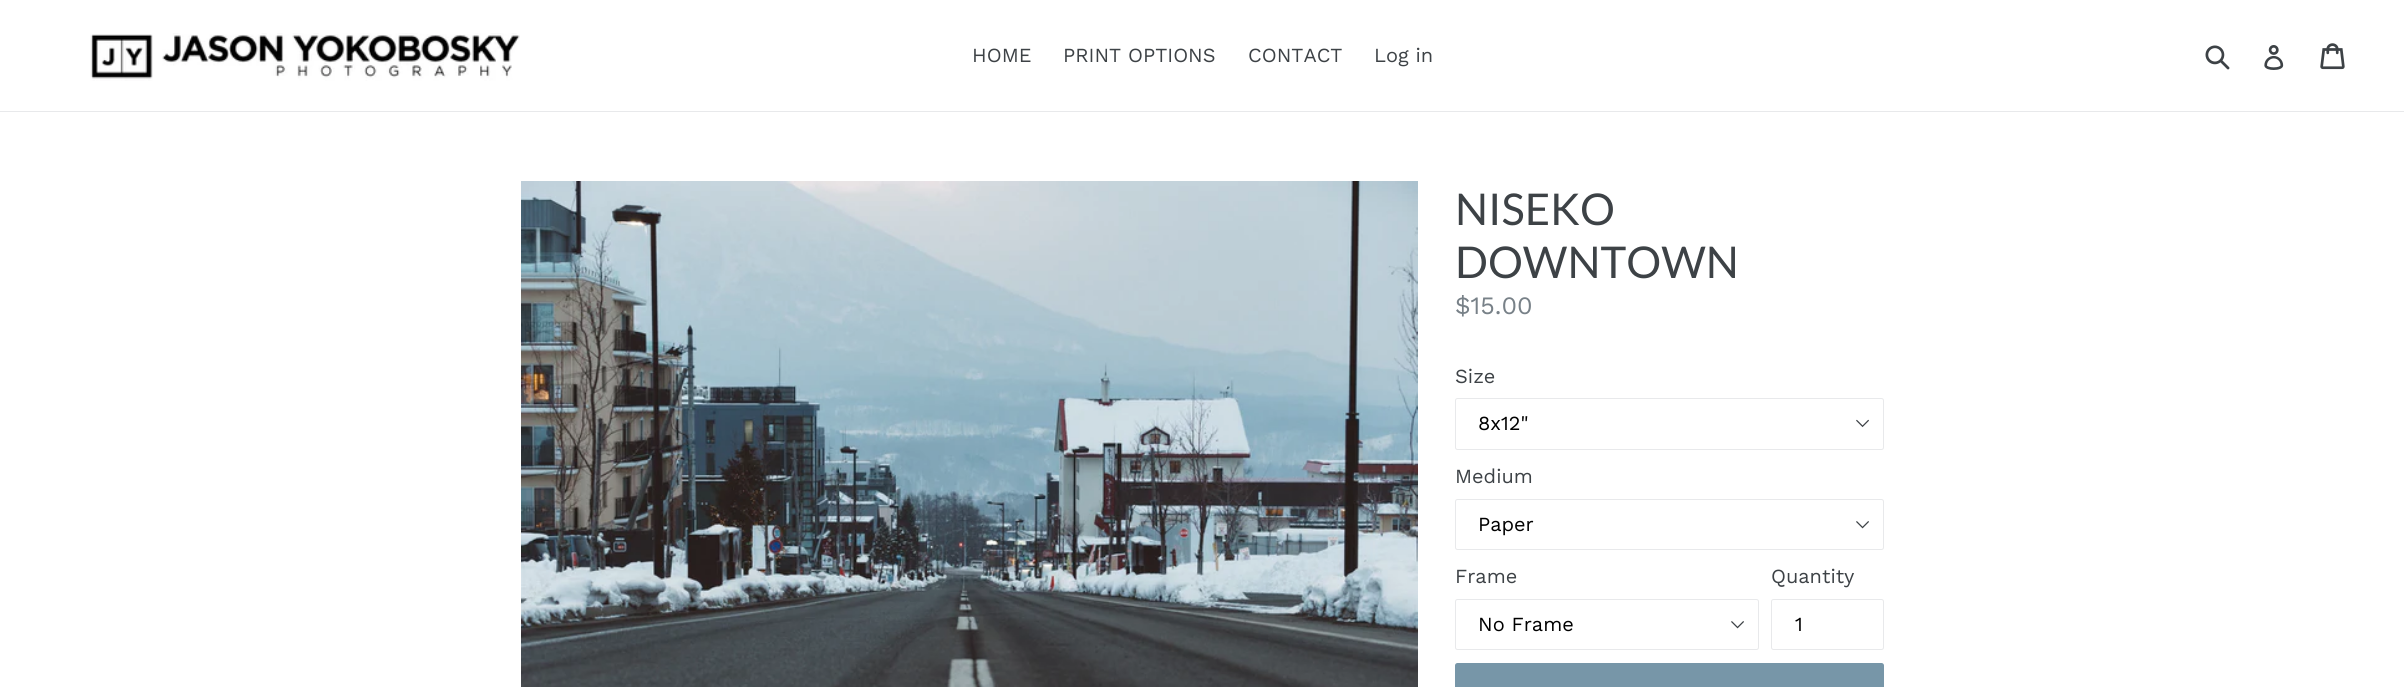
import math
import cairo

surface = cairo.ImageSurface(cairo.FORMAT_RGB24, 2404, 687)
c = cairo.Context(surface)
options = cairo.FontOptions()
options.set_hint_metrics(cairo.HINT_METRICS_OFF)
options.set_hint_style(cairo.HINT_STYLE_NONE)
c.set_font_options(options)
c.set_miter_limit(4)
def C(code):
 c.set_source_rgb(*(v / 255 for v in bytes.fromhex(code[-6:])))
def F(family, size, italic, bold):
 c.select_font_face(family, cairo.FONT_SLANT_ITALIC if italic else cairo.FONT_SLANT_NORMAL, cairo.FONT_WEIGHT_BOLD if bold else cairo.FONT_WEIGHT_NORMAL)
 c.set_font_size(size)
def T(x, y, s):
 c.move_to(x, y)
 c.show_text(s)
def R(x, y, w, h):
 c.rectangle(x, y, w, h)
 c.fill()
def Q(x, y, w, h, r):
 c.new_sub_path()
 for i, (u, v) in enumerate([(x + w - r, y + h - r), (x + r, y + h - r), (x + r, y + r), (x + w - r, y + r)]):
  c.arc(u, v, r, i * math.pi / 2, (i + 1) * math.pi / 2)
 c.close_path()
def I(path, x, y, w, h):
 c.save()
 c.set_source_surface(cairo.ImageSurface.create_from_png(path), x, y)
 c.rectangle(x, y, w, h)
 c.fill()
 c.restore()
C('ffffff')
c.paint()
C('e8e9eb')
R(0,111,2404,1)
I('1.png',90,33,430,48)
F('Work Sans',20,0,0)
C('3d4246')
T(972,62,'HOME')
T(1063,62,'PRINT OPTIONS')
T(1248,62,'CONTACT')
T(1374,62,'Log in')
I('2.png',2205,45,25,25)
I('3.png',2264,45,20,25)
I('4.png',2320,43,25,27)
I('5.png',521,181,897,506)
F('Lato',43.75,0,0)
T(1455,225,'NISEKO')
T(1455,278,'DOWNTOWN')
F('Work Sans',25,0,0)
C('788188')
T(1455,314,'$15.00')
F('Work Sans',20,0,0)
C('3d4246')
T(1455,383,'Size')
I('6.png',1856,419,13,9)
Q(1455.5,398.5,428,51,2)
C('e8e9eb')
c.set_line_width(1)
c.stroke()
C('000000')
T(1478,430,'8x12"')
C('3d4246')
T(1455,483,'Medium')
I('7.png',1856,521,13,8)
Q(1455.5,499.5,428,50,2)
C('e8e9eb')
c.stroke()
C('000000')
T(1478,531,'Paper')
C('3d4246')
T(1455,583,'Frame')
I('7.png',1731,621,13,8)
Q(1455.5,599.5,303,50,2)
C('e8e9eb')
c.stroke()
C('000000')
T(1478,631,'No Frame')
C('3d4246')
T(1771,583,'Quantity')
Q(1771.5,599.5,112,50,2)
C('e8e9eb')
c.stroke()
C('000000')
T(1795,631,'1')
C('7796a8')
Q(1455,663,429,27,2.5)
c.fill()
surface.write_to_png('o.png')
